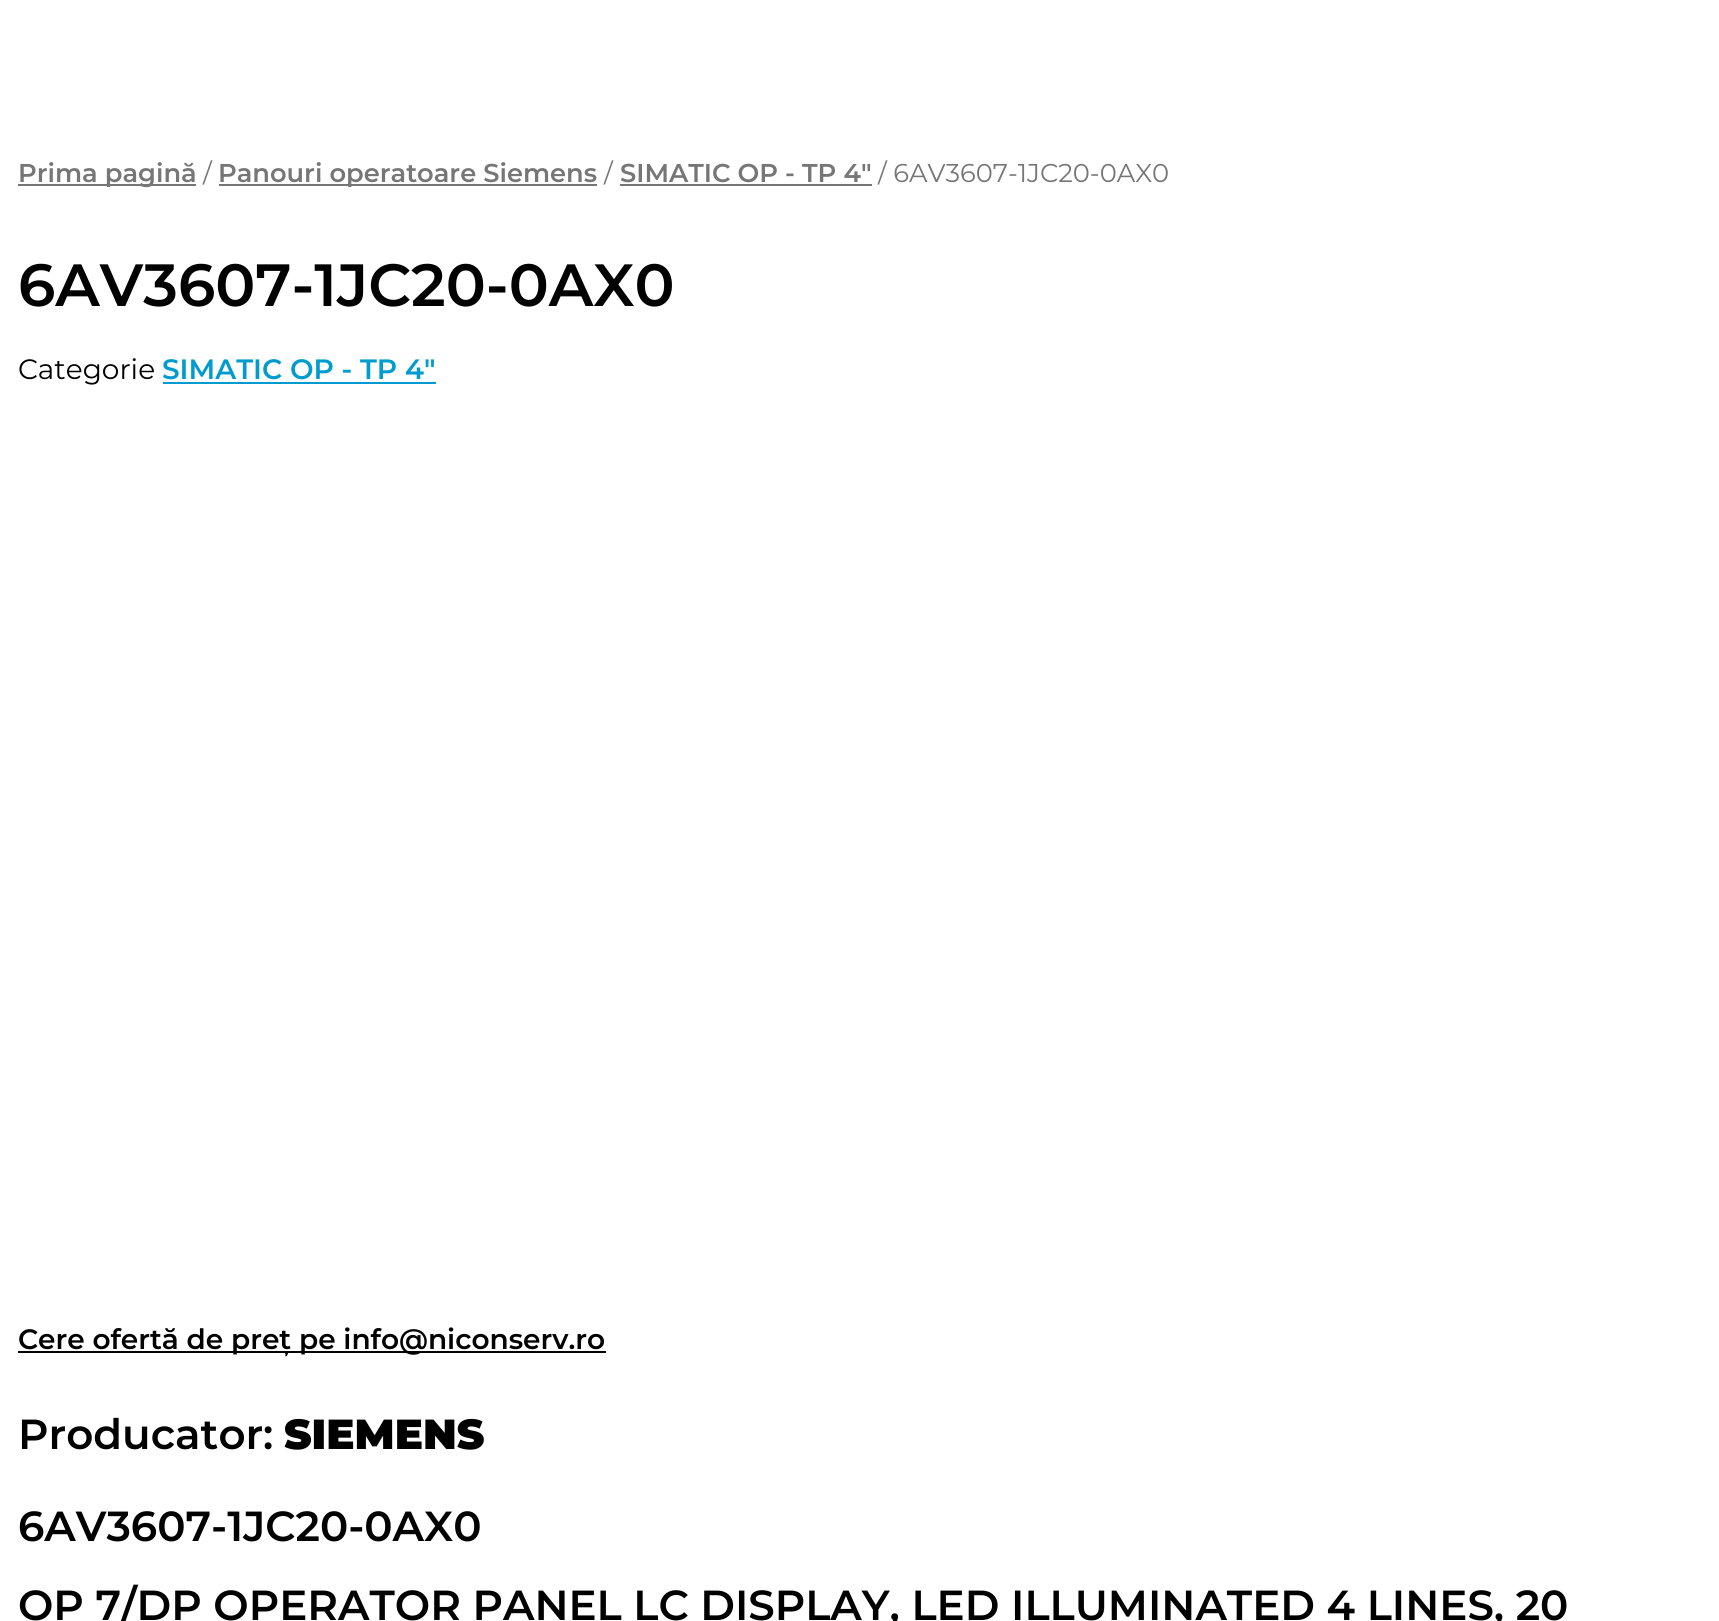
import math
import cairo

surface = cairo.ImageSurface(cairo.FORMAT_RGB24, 1719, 1621)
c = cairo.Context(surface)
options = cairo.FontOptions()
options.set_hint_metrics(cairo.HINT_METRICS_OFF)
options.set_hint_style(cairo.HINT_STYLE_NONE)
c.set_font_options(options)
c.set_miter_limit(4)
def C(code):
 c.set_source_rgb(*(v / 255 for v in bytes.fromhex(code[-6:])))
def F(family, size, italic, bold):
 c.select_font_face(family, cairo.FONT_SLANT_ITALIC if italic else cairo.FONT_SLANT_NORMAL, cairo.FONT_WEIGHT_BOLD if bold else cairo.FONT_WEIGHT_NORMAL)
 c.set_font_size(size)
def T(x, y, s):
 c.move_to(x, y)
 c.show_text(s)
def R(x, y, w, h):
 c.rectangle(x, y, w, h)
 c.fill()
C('ffffff')
c.paint()
C('767676')
R(18,184,178,2)
F('Montserrat SemiBold',25.75,0,0)
T(18,182,'Prima pagină')
F('Montserrat',25.75,0,0)
T(203,182,'/')
R(219,184,378,2)
F('Montserrat SemiBold',25.75,0,0)
T(218,182,'Panouri operatoare Siemens')
F('Montserrat',25.75,0,0)
T(604,182,'/')
F('Montserrat SemiBold',25.75,0,0)
T(620,182,'SIMATIC OP - TP 4"')
R(620,184,252,2)
F('Montserrat',25.75,0,0)
T(878,182,'/ 6AV3607-1JC20-0AX0')
F('Montserrat SemiBold',59.5,0,0)
C('000000')
T(18,306,'6AV3607-1JC20-0AX0')
F('Montserrat',28,0,0)
T(18,379,'Categorie')
F('Montserrat SemiBold',28,0,0)
C('009bcf')
T(162,379,'SIMATIC OP - TP 4"')
R(163,382,273,2)
C('000000')
R(18,1351,588,2)
T(18,1349,'Cere ofertă de preț pe info@niconserv.ro')
F('Montserrat SemiBold',42,0,0)
T(18,1449,'Producator:')
F('Montserrat Black',42,0,0)
T(284,1449,'SIEMENS')
F('Montserrat SemiBold',42,0,0)
T(18,1541,'6AV3607-1JC20-0AX0')
T(18,1620,'OP 7/DP OPERATOR PANEL LC DISPLAY, LED ILLUMINATED 4 LINES, 20')
surface.write_to_png('o.png')
